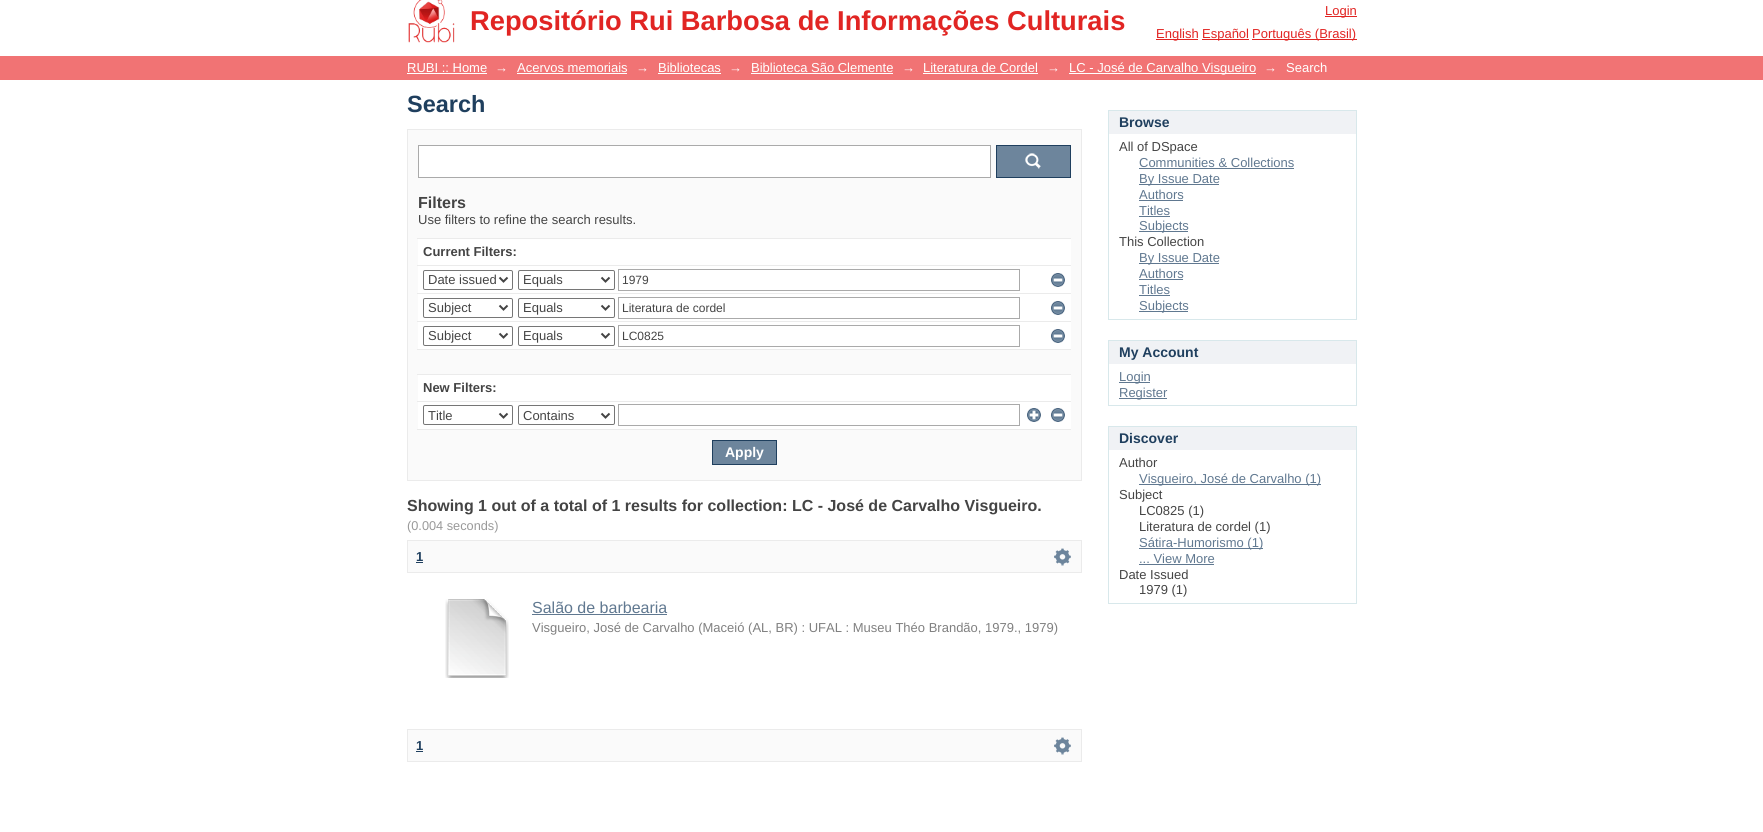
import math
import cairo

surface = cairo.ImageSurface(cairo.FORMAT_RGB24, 1763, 832)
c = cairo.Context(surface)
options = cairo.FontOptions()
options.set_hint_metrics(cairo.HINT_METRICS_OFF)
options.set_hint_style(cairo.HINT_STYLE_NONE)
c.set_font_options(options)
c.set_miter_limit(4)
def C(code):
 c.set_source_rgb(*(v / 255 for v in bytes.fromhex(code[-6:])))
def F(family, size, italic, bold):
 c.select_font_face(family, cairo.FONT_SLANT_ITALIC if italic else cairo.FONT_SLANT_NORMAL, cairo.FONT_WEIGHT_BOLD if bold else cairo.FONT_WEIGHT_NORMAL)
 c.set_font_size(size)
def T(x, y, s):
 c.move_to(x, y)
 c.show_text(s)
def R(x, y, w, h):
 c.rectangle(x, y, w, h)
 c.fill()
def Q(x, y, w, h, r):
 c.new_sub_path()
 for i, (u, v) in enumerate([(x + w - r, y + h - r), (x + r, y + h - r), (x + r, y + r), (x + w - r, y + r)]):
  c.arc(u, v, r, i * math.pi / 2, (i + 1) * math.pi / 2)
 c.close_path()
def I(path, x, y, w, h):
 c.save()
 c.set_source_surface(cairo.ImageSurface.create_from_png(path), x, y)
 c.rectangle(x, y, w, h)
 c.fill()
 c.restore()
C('ffffff')
c.paint()
I('1.png',408,0,47,43)
F('Liberation Sans',27.3,0,1)
C('e12523')
T(470,30,'Repositório Rui Barbosa de Informações Culturais')
R(1325,16,32,1)
F('Liberation Sans',13,0,0)
T(1325,15,'Login')
R(1156,39,42,1)
T(1156,38,'English')
R(1202,39,47,1)
T(1202,38,'Español')
R(1252,39,105,1)
T(1252,38,'Português (Brasil)')
C('f17374')
R(0,56,1763,24)
C('ffffff')
T(407,72,'RUBI :: Home')
R(407,73,80,1)
T(495,72,'→')
T(517,72,'Acervos memoriais')
R(517,73,110,1)
T(636,72,'→')
T(658,72,'Bibliotecas')
R(658,73,63,1)
T(729,72,'→')
T(751,72,'Biblioteca São Clemente')
R(751,73,142,1)
T(902,72,'→')
T(923,72,'Literatura de Cordel')
R(923,73,115,1)
T(1047,72,'→')
R(1069,73,187,1)
T(1069,72,'LC - José de Carvalho Visgueiro')
T(1264,72,'→')
T(1286,72,'Search')
F('Liberation Sans',23.5,0,1)
C('1f3f5e')
T(407,112,'Search')
C('fafafa')
c.rectangle(407.5,129.5,674,351)
c.fill_preserve()
C('ebebeb')
c.set_line_width(1)
c.stroke()
C('ffffff')
c.rectangle(418.5,145.5,572,32)
c.fill_preserve()
C('aaaaaa')
c.stroke()
C('6d859c')
R(997,146,73,31)
I('2.png',1025,153,16,16)
c.rectangle(996.5,145.5,74,32)
C('1f3f5e')
c.stroke()
F('Liberation Sans',16,0,1)
C('444444')
T(418,208,'Filters')
F('Liberation Sans',13,0,0)
T(418,224,'Use filters to refine the search results.')
C('ffffff')
R(418,239,653,190)
C('ebebeb')
R(417,238,654,1)
F('Liberation Sans',13,0,1)
C('444444')
T(423,256,'Current Filters:')
C('ebebeb')
R(417,265,654,1)
Q(423.5,270.5,89,19,1.5)
C('767676')
c.stroke()
c.new_path()
c.move_to(499.5,277.5)
c.line_to(503.5,281.5)
c.line_to(507.5,277.5)
C('444444')
c.set_line_width(2)
c.stroke()
F('Liberation Sans',13,0,0)
T(428,284,'Date issued')
Q(518.5,270.5,96,19,1.5)
C('767676')
c.set_line_width(1)
c.stroke()
c.new_path()
c.move_to(601.5,277.5)
c.line_to(605.5,281.5)
c.line_to(609.5,277.5)
C('444444')
c.set_line_width(2)
c.stroke()
T(523,284,'Equals')
c.rectangle(618.5,269.5,401,21)
C('aaaaaa')
c.set_line_width(1)
c.stroke()
F('Liberation Sans',12,0,0)
C('444444')
T(622,284,'1979')
I('3.png',1051,273,14,14)
C('ebebeb')
R(417,293,654,1)
Q(423.5,298.5,89,19,1.5)
C('767676')
c.stroke()
c.new_path()
c.move_to(499.5,305.5)
c.line_to(503.5,309.5)
c.line_to(507.5,305.5)
C('444444')
c.set_line_width(2)
c.stroke()
F('Liberation Sans',13,0,0)
T(428,312,'Subject')
Q(518.5,298.5,96,19,1.5)
C('767676')
c.set_line_width(1)
c.stroke()
c.new_path()
c.move_to(601.5,305.5)
c.line_to(605.5,309.5)
c.line_to(609.5,305.5)
C('444444')
c.set_line_width(2)
c.stroke()
T(523,312,'Equals')
c.rectangle(618.5,297.5,401,21)
C('aaaaaa')
c.set_line_width(1)
c.stroke()
F('Liberation Sans',12,0,0)
C('444444')
T(622,312,'Literatura de cordel')
I('3.png',1051,301,14,14)
C('ebebeb')
R(417,321,654,1)
Q(423.5,326.5,89,19,1.5)
C('767676')
c.stroke()
c.new_path()
c.move_to(499.5,333.5)
c.line_to(503.5,337.5)
c.line_to(507.5,333.5)
C('444444')
c.set_line_width(2)
c.stroke()
F('Liberation Sans',13,0,0)
T(428,340,'Subject')
Q(518.5,326.5,96,19,1.5)
C('767676')
c.set_line_width(1)
c.stroke()
c.new_path()
c.move_to(601.5,333.5)
c.line_to(605.5,337.5)
c.line_to(609.5,333.5)
C('444444')
c.set_line_width(2)
c.stroke()
T(523,340,'Equals')
c.rectangle(618.5,325.5,401,21)
C('aaaaaa')
c.set_line_width(1)
c.stroke()
F('Liberation Sans',12,0,0)
C('444444')
T(622,340,'LC0825')
I('3.png',1051,329,14,14)
C('fafafa')
R(418,350,653,24)
C('ebebeb')
R(417,349,654,1)
R(417,374,654,1)
F('Liberation Sans',13,0,1)
C('444444')
T(423,392,'New Filters:')
C('ebebeb')
R(417,401,654,1)
Q(423.5,405.5,89,19,1.5)
C('767676')
c.stroke()
c.new_path()
c.move_to(499.5,413.5)
c.line_to(503.5,417.5)
c.line_to(507.5,413.5)
C('444444')
c.set_line_width(2)
c.stroke()
F('Liberation Sans',13,0,0)
T(428,420,'Title')
Q(518.5,405.5,96,19,1.5)
C('767676')
c.set_line_width(1)
c.stroke()
c.new_path()
c.move_to(601.5,413.5)
c.line_to(605.5,417.5)
c.line_to(609.5,413.5)
C('444444')
c.set_line_width(2)
c.stroke()
T(523,420,'Contains')
c.rectangle(618.5,404.5,401,21)
C('aaaaaa')
c.set_line_width(1)
c.stroke()
I('4.png',1027,408,14,14)
I('3.png',1051,408,14,14)
C('ebebeb')
R(417,429,654,1)
C('6d859c')
c.rectangle(712.5,440.5,64,24)
c.fill_preserve()
C('1f3f5e')
c.stroke()
F('Liberation Sans',14,0,1)
C('ffffff')
T(725,457,'Apply')
F('Liberation Sans',16,0,1)
C('444444')
T(407,511,'Showing 1 out of a total of 1 results for collection: LC - José de Carvalho Visgueiro.')
F('Liberation Sans',12.75,0,0)
C('999999')
T(407,530,'(0.004 seconds)')
C('fafafa')
c.rectangle(407.5,540.5,674,32)
c.fill_preserve()
C('ebebeb')
c.stroke()
F('Liberation Sans',13,0,1)
C('1f3f5e')
T(416,561,'1')
R(416,562,7,1)
I('5.png',1054,548,17,18)
I('6.png',445,599,64,79)
F('Liberation Sans',16,0,0)
C('607890')
T(532,613,'Salão de barbearia')
R(532,614,135,1)
F('Liberation Sans',13,0,0)
C('808080')
T(532,632,'Visgueiro, José de Carvalho (Maceió (AL, BR) : UFAL : Museu Théo Brandão, 1979., 1979)')
C('fafafa')
c.rectangle(407.5,729.5,674,32)
c.fill_preserve()
C('ebebeb')
c.stroke()
F('Liberation Sans',13,0,1)
C('1f3f5e')
T(416,750,'1')
R(416,751,7,1)
I('5.png',1054,737,17,18)
C('f0f2f5')
R(1109,111,247,23)
C('d8e8eb')
R(1108,110,249,1)
R(1356,110,1,210)
R(1108,110,1,24)
F('Liberation Sans',14,0,1)
C('1f3f5e')
T(1119,127,'Browse')
C('d8e8eb')
R(1108,319,249,1)
R(1108,134,1,186)
F('Liberation Sans',13,0,0)
C('444444')
T(1119,151,'All of DSpace')
C('607890')
T(1139,167,'Communities & Collections')
R(1139,168,155,1)
R(1139,184,80,1)
T(1139,183,'By Issue Date')
T(1139,199,'Authors')
R(1139,200,44,1)
T(1139,215,'Titles')
R(1139,216,31,1)
R(1139,231,49,1)
T(1139,230,'Subjects')
C('444444')
T(1119,246,'This Collection')
C('607890')
R(1139,263,80,1)
T(1139,262,'By Issue Date')
T(1139,278,'Authors')
R(1139,279,44,1)
T(1139,294,'Titles')
R(1139,295,31,1)
R(1139,311,49,1)
T(1139,310,'Subjects')
C('f0f2f5')
R(1109,341,247,23)
C('d8e8eb')
R(1108,340,249,1)
R(1356,340,1,66)
R(1108,340,1,24)
F('Liberation Sans',14,0,1)
C('1f3f5e')
T(1119,357,'My Account')
C('d8e8eb')
R(1108,405,249,1)
R(1108,364,1,42)
C('607890')
R(1119,382,31,1)
F('Liberation Sans',13,0,0)
T(1119,381,'Login')
R(1119,398,48,1)
T(1119,397,'Register')
C('f0f2f5')
R(1109,427,247,23)
C('d8e8eb')
R(1108,426,249,1)
R(1356,426,1,178)
R(1108,426,1,24)
F('Liberation Sans',14,0,1)
C('1f3f5e')
T(1119,443,'Discover')
C('d8e8eb')
R(1108,603,249,1)
R(1108,450,1,154)
F('Liberation Sans',13,0,0)
C('444444')
T(1119,467,'Author')
C('607890')
R(1139,484,182,1)
T(1139,483,'Visgueiro, José de Carvalho (1)')
C('444444')
T(1119,499,'Subject')
T(1139,515,'LC0825 (1)')
T(1139,531,'Literatura de cordel (1)')
C('607890')
R(1139,548,124,1)
T(1139,547,'Sátira-Humorismo (1)')
T(1139,563,'... View More')
R(1139,564,75,1)
C('444444')
T(1119,579,'Date Issued')
T(1139,594,'1979 (1)')
surface.write_to_png('o.png')
